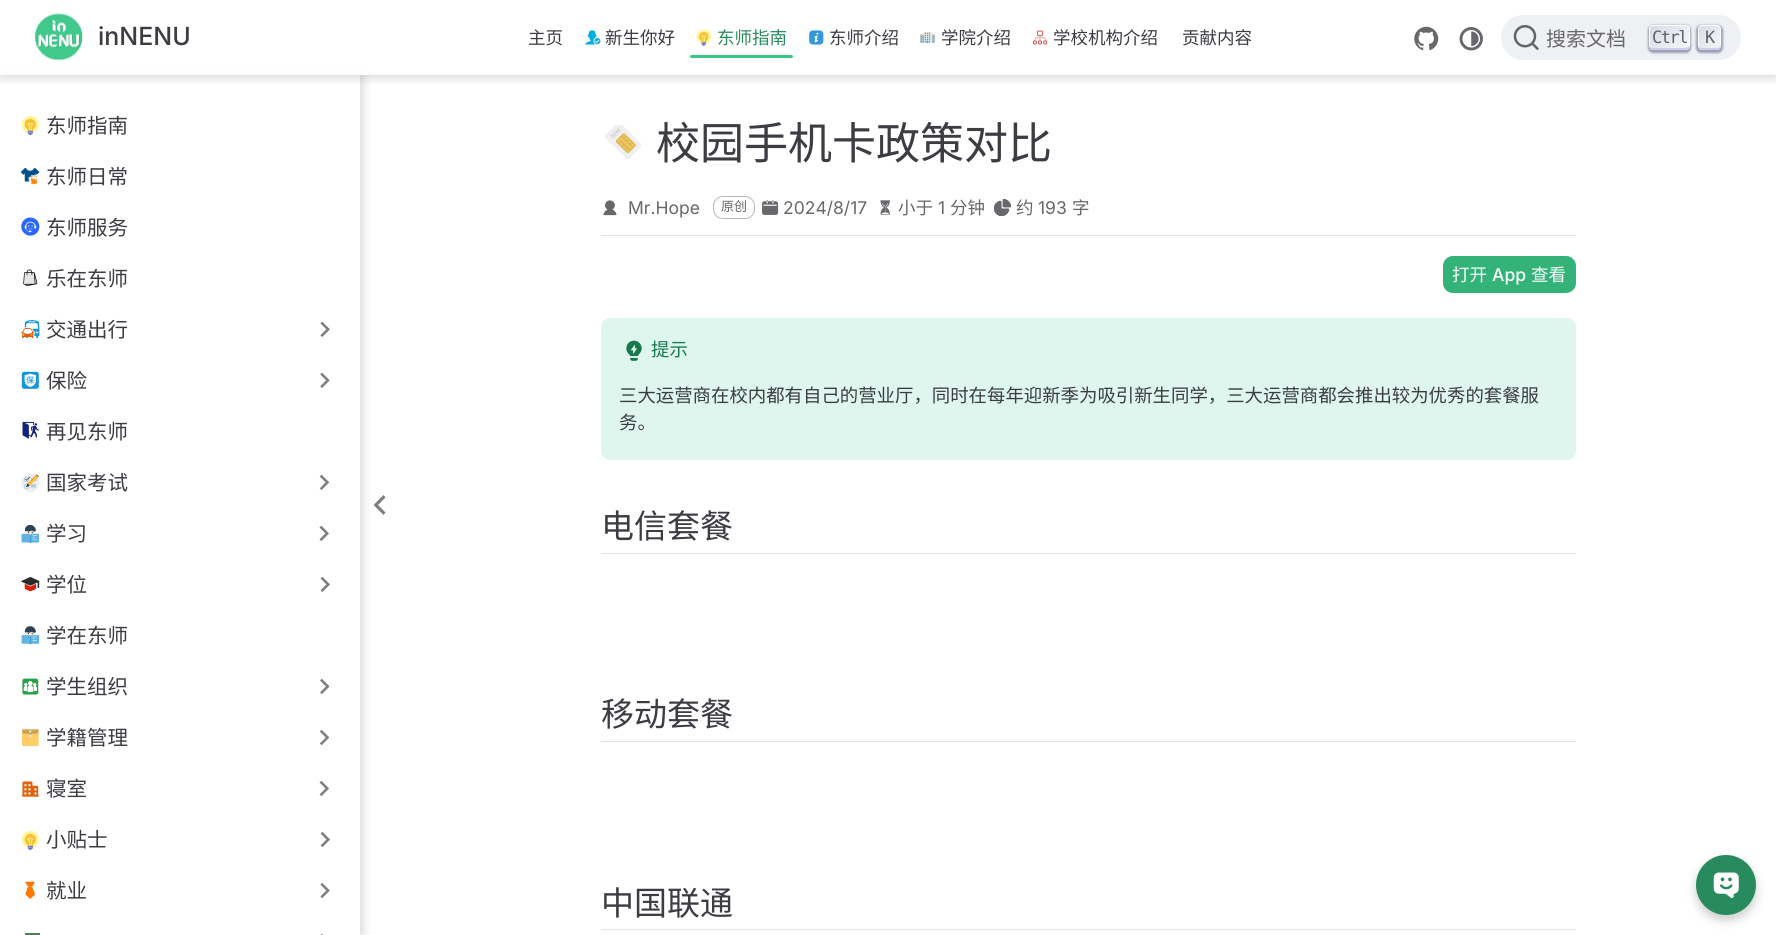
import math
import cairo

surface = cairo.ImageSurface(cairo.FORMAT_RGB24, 1776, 935)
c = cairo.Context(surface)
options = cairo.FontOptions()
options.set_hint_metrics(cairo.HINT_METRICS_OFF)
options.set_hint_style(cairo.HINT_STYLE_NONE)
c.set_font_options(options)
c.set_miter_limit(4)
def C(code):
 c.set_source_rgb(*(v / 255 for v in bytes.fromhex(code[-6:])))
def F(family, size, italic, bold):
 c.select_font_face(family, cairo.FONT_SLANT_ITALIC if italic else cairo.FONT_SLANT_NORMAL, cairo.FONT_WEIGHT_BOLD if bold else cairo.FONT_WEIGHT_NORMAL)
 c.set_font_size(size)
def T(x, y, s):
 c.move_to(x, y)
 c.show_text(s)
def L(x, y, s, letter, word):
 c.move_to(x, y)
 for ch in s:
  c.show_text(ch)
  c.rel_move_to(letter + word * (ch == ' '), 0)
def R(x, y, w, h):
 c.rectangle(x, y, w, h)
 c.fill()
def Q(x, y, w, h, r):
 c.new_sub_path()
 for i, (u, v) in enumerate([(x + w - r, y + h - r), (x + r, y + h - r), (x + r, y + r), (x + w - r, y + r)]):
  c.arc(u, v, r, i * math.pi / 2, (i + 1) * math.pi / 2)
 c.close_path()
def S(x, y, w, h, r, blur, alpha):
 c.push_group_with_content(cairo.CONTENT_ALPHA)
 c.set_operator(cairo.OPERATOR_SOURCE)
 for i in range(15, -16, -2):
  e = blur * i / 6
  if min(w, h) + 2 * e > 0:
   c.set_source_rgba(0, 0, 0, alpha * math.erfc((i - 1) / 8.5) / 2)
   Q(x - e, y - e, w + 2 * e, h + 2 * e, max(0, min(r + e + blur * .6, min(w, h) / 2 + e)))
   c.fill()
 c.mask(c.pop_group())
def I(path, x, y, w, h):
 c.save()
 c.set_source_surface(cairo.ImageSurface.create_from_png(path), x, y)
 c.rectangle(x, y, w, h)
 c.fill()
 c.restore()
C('ffffff')
c.paint()
c.save()
c.rectangle(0,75,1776,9)
c.clip()
C('000000')
S(0,3,1776,75,0,5,.15)
c.restore()
c.save()
c.set_fill_rule(cairo.FILL_RULE_EVEN_ODD)
c.new_path()
c.move_to(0,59)
c.line_to(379,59)
c.line_to(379,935)
c.line_to(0,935)
c.close_path()
c.move_to(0,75)
c.line_to(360,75)
c.line_to(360,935)
c.line_to(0,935)
c.close_path()
c.clip()
C('000000')
S(3,75,360,860,0,5,.15)
c.restore()
c.set_source_rgba(1,1,1,0.9)
R(0,68,368,7)
I('1.png',35,13,48,48)
F('Inter Medium',25,0,0)
C('3c3c43')
T(98,45,'inNENU')
F('Noto Sans CJK SC',17.5,0,0)
T(528,44,'主页')
I('2.png',585,30,16,15)
T(605,44,'新生你好')
I('3.png',696,29,15,17)
C('288b5e')
T(717,44,'东师指南')
C('38c786')
Q(690,55,103,3,1.5)
c.fill()
I('4.png',809,30,15,15)
C('3c3c43')
T(829,44,'东师介绍')
I('5.png',920,32,15,11)
T(941,44,'学院介绍')
I('6.png',1032,30,16,15)
T(1053,44,'学校机构介绍')
T(1182,44,'贡献内容')
I('7.png',1414,26,25,25)
I('8.png',1459,27,24,24)
C('eff0f3')
Q(1501,15,240,45,22.5)
c.fill()
I('9.png',1513,25,26,25)
F('Noto Sans CJK SC',20,0,0)
C('67676c')
T(1546,46,'搜索文档')
C('1e235a')
S(1648,25,43,28,5,1,.4)
gradient = cairo.LinearGradient(1653,21,1686,54)
gradient.add_color_stop_rgba(0,0.835,0.859,0.894,1)
gradient.add_color_stop_rgba(1,0.973,0.973,0.973,1)
c.set_source(gradient)
Q(1649.5,25.5,40,24,3.5)
c.fill_preserve()
C('ffffff')
c.set_line_width(1)
c.stroke()
C('cdcde6')
c.new_path()
c.move_to(1690,44)
c.curve_to(1690,47,1688,48,1681,48)
c.line_to(1652,48)
c.curve_to(1650,48,1649,46,1649,45)
c.curve_to(1649,51,1653,50,1658,50)
c.line_to(1680,50)
c.curve_to(1686,50,1690,51,1690,44)
c.close_path()
c.fill()
F('DejaVu Sans Mono',17,0,0)
C('616268')
L(1652,43,'Ctrl',-1.5,0)
C('1e235a')
S(1696,25,27,28,5,1,.4)
gradient = cairo.LinearGradient(1697,25,1722,50)
gradient.add_color_stop_rgba(0,0.835,0.859,0.894,1)
gradient.add_color_stop_rgba(1,0.973,0.973,0.973,1)
c.set_source(gradient)
Q(1698.5,25.5,22,24,3.5)
c.fill_preserve()
C('ffffff')
c.stroke()
C('cdcde6')
c.new_path()
c.move_to(1721,45.5)
c.curve_to(1720.5,47,1718.5,48,1715,48)
c.line_to(1701,48)
c.curve_to(1699.5,47.5,1698.5,46.5,1698,45)
c.curve_to(1698,49.5,1700.5,50,1704.5,50)
c.line_to(1714.5,50)
c.curve_to(1717.5,50,1721,50,1721,45.5)
c.close_path()
c.fill()
C('616268')
L(1705,43,'K',-1.5,0)
I('10.png',21,115,18,20)
F('Noto Sans CJK SC',20.5,0,0)
C('3c3c43')
T(46,133,'东师指南')
I('11.png',20,168,20,17)
T(46,184,'东师日常')
I('12.png',21,217,19,19)
T(46,235,'东师服务')
I('13.png',23,269,15,17)
T(46,286,'乐在东师')
I('14.png',21,320,19,19)
T(46,337,'交通出行')
I('15.png',320,321,10,16)
I('16.png',21,371,18,18)
T(46,388,'保险')
I('17.png',320,372,10,16)
I('18.png',22,421,17,18)
T(46,439,'再见东师')
I('19.png',21,474,19,18)
T(46,490,'国家考试')
I('20.png',319,474,11,16)
I('21.png',21,525,19,19)
T(46,541,'学习')
I('22.png',319,525,10,16)
I('23.png',21,577,19,15)
T(46,592,'学位')
I('24.png',320,576,10,16)
I('25.png',21,626,19,19)
T(46,643,'学在东师')
I('26.png',22,678,17,17)
T(46,694,'学生组织')
I('27.png',320,678,10,16)
I('28.png',22,729,17,18)
T(46,745,'学籍管理')
I('29.png',319,729,11,17)
I('30.png',21,781,18,16)
T(46,796,'寝室')
I('31.png',319,780,10,17)
I('10.png',21,830,18,20)
T(46,847,'小贴士')
I('32.png',320,831,10,17)
I('33.png',25,881,10,18)
T(46,898,'就业')
I('34.png',320,882,10,17)
C('4d7c61')
R(25,933,15,2)
I('35.png',320,933,3,2)
C('7f7f7f')
c.new_path()
c.move_to(385.5,512.5)
c.line_to(378,505)
c.line_to(385.5,497.5)
c.line_to(383.5,495)
c.line_to(373.5,505)
c.line_to(383.5,515)
c.close_path()
c.fill()
I('36.png',605,125,37,34)
F('Noto Sans CJK SC',44,0,0)
C('3c3c43')
T(656,159,'校园手机卡政策对比')
I('37.png',603,200,14,16)
F('Inter',17.5,0,0)
C('67676c')
T(628,214,'Mr.Hope')
Q(713.5,196.5,41,22,9.5)
C('b8b8ba')
c.stroke()
F('Noto Sans CJK SC',13,0,0)
C('67676c')
T(721,211,'原创')
I('38.png',762,200,17,15)
F('Inter',17.5,0,0)
T(783,214,'2024/8/17')
I('39.png',880,200,10,15)
F('Noto Sans CJK SC',17.5,0,0)
T(898,214,'小于')
F('Inter',17.5,0,0)
T(938,214,'1')
F('Noto Sans CJK SC',17.5,0,0)
T(950,214,'分钟')
I('40.png',994,199,17,17)
T(1016,214,'约')
F('Inter',17.5,0,0)
T(1038,214,'193')
F('Noto Sans CJK SC',17.5,0,0)
T(1072,214,'字')
C('e2e2e3')
R(601,235,975,1)
C('33b378')
Q(1443,256,133,37,10)
c.fill()
C('ffffff')
T(1452,281,'打开')
F('Inter Medium',17.5,0,0)
T(1492,281,'App')
F('Noto Sans CJK SC',17.5,0,0)
T(1531,281,'查看')
C('def6ee')
Q(601,318,975,142,9)
c.fill()
I('41.png',626,340,16,21)
F('Noto Sans CJK SC',18.4,0,0)
C('18794e')
T(651,356,'提示')
C('3c3c43')
T(619,402,'三大运营商在校内都有自己的营业厅，同时在每年迎新季为吸引新生同学，三大运营商都会推出较为优秀的套餐服')
T(619,429,'务。')
C('e2e2e3')
R(601,553,975,1)
F('Noto Sans CJK SC',33,0,0)
C('3c3c43')
T(601,538,'电信套餐')
C('e2e2e3')
R(601,741,975,1)
C('3c3c43')
T(601,726,'移动套餐')
C('e2e2e3')
R(601,929,975,1)
C('3c3c43')
T(601,915,'中国联通')
C('000000')
S(1696,860,60,60,30,5,.2)
C('288b5e')
c.arc(1726,885,30,0,2 * math.pi)
c.fill()
I('42.png',1713,872,26,27)
surface.write_to_png('o.png')
